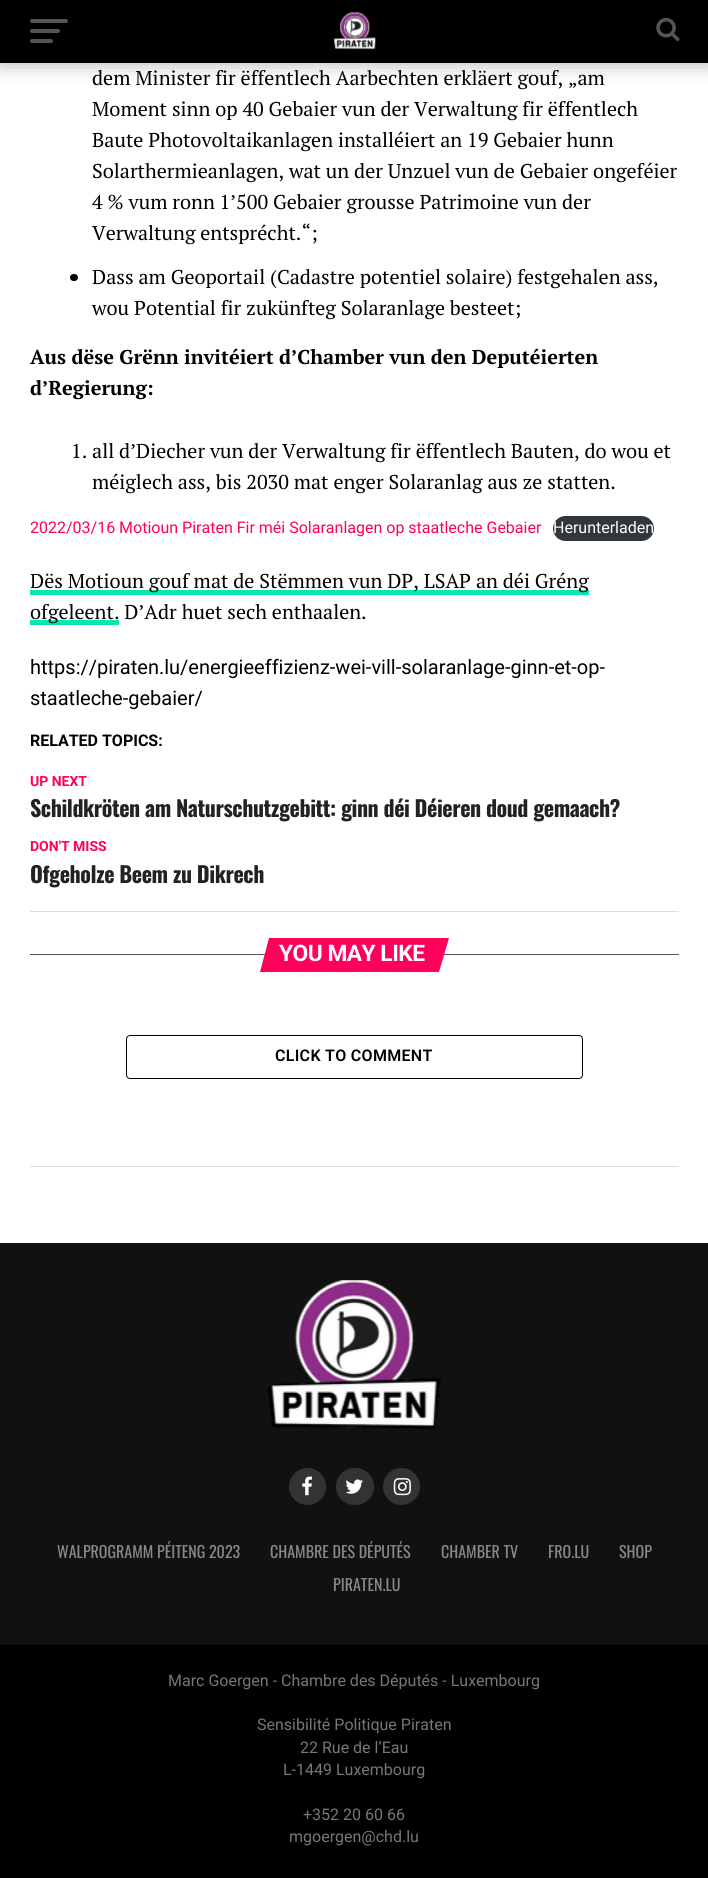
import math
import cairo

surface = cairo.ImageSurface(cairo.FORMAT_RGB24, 708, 1878)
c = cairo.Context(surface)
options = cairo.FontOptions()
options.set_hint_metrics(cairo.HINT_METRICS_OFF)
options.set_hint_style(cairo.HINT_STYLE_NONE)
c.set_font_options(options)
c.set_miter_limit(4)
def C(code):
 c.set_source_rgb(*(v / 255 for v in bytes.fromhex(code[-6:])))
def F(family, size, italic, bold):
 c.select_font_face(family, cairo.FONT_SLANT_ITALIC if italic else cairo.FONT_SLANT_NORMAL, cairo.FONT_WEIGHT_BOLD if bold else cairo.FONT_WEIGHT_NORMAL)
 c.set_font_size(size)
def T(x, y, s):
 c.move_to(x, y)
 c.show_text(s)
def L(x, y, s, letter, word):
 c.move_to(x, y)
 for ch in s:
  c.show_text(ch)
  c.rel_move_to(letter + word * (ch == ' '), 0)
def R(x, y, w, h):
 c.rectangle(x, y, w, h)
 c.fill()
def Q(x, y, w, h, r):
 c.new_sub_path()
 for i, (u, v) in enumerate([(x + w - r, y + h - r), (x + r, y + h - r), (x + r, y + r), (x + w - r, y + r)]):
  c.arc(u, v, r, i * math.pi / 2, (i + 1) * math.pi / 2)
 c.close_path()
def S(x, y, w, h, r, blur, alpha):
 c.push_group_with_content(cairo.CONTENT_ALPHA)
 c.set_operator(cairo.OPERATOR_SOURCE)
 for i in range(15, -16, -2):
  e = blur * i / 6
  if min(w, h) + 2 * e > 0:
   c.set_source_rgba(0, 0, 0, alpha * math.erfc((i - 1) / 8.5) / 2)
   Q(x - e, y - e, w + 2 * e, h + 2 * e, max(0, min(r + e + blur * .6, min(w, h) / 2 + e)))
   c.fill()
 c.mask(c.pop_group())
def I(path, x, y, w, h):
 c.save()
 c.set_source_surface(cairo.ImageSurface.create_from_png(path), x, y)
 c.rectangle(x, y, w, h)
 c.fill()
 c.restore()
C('ffffff')
c.paint()
C('000000')
S(0,1,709,63,0,10,.3)
C('000000')
R(0,0,708,63)
C('555555')
Q(30,19,38,4,2)
c.fill()
Q(30,29,30,4,2)
c.fill()
Q(30,39,23,4,2)
c.fill()
I('1.png',333,12,44,38)
I('2.png',656,17,24,24)
C('dddddd')
R(30,1166,649,1)
F('PT Serif',20,0,0)
C('000000')
T(92,85,'dem Minister fir ëffentlech Aarbechten erkläert gouf, „am')
T(92,116,'Moment sinn op 40 Gebaier vun der Verwaltung fir ëffentlech')
T(92,147,'Baute Photovoltaikanlagen installéiert an 19 Gebaier hunn')
T(92,178,'Solarthermieanlagen, wat un der Unzuel vun de Gebaier ongeféier')
T(92,209,'4 % vum ronn 1’500 Gebaier grousse Patrimoine vun der')
T(92,240,'Verwaltung entsprécht.“;')
Q(70,274,8,7,3.5)
c.fill()
T(92,284,'Dass am Geoportail (Cadastre potentiel solaire) festgehalen ass,')
T(92,315,'wou Potential fir zukünfteg Solaranlage besteet;')
F('PT Serif',20,0,1)
T(30,364,'Aus dëse Grënn invitéiert d’Chamber vun den Deputéierten')
T(30,395,'d’Regierung:')
F('PT Serif',20,0,0)
T(71,458,'1. all d’Diecher vun der Verwaltung fir ëffentlech Bauten, do wou et')
T(92,489,'méiglech ass, bis 2030 mat enger Solaranlag aus ze statten.')
F('Roboto',16,0,0)
C('ff005b')
T(30,533,'2022/03/16 Motioun Piraten Fir méi Solaranlagen op staatleche Gebaier')
C('32373c')
Q(553,516,101,25,12.5)
c.fill()
C('ffffff')
T(553,533,'Herunterladen')
C('0be6af')
R(30,590,559,5)
F('PT Serif',20,0,0)
C('000000')
T(30,588,'Dës Motioun gouf mat de Stëmmen vun DP, LSAP an déi Gréng')
C('0be6af')
R(30,620,89,5)
C('000000')
T(30,619,'ofgeleent. D’Adr huet sech enthaalen.')
F('Roboto',20,0,0)
T(30,674,'https://piraten.lu/energieeffizienz-wei-vill-solaranlage-ginn-et-op-')
T(30,705,'staatleche-gebaier/')
F('Roboto',16,0,1)
T(30,746,'RELATED TOPICS:')
C('dddddd')
R(30,911,649,1)
F('Roboto',14,0,1)
C('ff005b')
T(30,786,'UP NEXT')
F('Oswald',22,0,1)
C('222222')
L(30,817,'Schildkröten am Naturschutzgebitt: ginn déi Déieren doud gemaach?',-.45,0)
F('Roboto',14,0,1)
C('ff005b')
T(30,851,'DON\'T MISS')
F('Oswald',22,0,1)
C('222222')
L(30,883,'Ofgeholze Beem zu Dikrech',-.45,0)
C('555555')
R(30,954,649,1)
C('ff005b')
c.new_path()
c.move_to(269,938)
c.line_to(449,938)
c.line_to(439,972)
c.line_to(260,972)
c.close_path()
c.fill()
F('Roboto',22.75,0,1)
C('ffffff')
L(279,961,'YOU MAY LIKE',-.5,0)
Q(126.5,1035.5,456,43,3.5)
C('000000')
c.set_line_width(1)
c.stroke()
F('Roboto SemiBold',16,0,0)
L(275,1061,'CLICK TO COMMENT',.3,0)
C('111111')
R(0,1243,708,402)
I('3.png',267,1280,175,149)
C('333333')
c.arc(307.5,1486.5,18.5,0,2 * math.pi)
c.fill()
I('4.png',302,1476,10,20)
Q(336,1468,38,37,18.5)
c.fill()
I('5.png',345,1479,18,15)
c.arc(401.5,1486.5,18.5,0,2 * math.pi)
c.fill()
I('6.png',393,1478,18,18)
F('Oswald',16,0,0)
C('888888')
T(57,1558,'WALPROGRAMM PÉITENG 2023')
T(270,1558,'CHAMBRE DES DÉPUTÉS')
T(441,1558,'CHAMBER TV')
T(548,1558,'FRO.LU')
T(619,1558,'SHOP')
T(333,1591,'PIRATEN.LU')
C('000000')
R(0,1645,708,233)
F('Roboto',16,0,0)
C('777777')
T(168,1686,'Marc Goergen - Chambre des Députés - Luxembourg')
T(257,1730,'Sensibilité Politique Piraten')
T(300,1753,'22 Rue de l’Eau')
T(283,1775,'L-1449 Luxembourg')
T(303,1820,'+352 20 60 66')
T(289,1842,'mgoergen@chd.lu')
surface.write_to_png('o.png')
